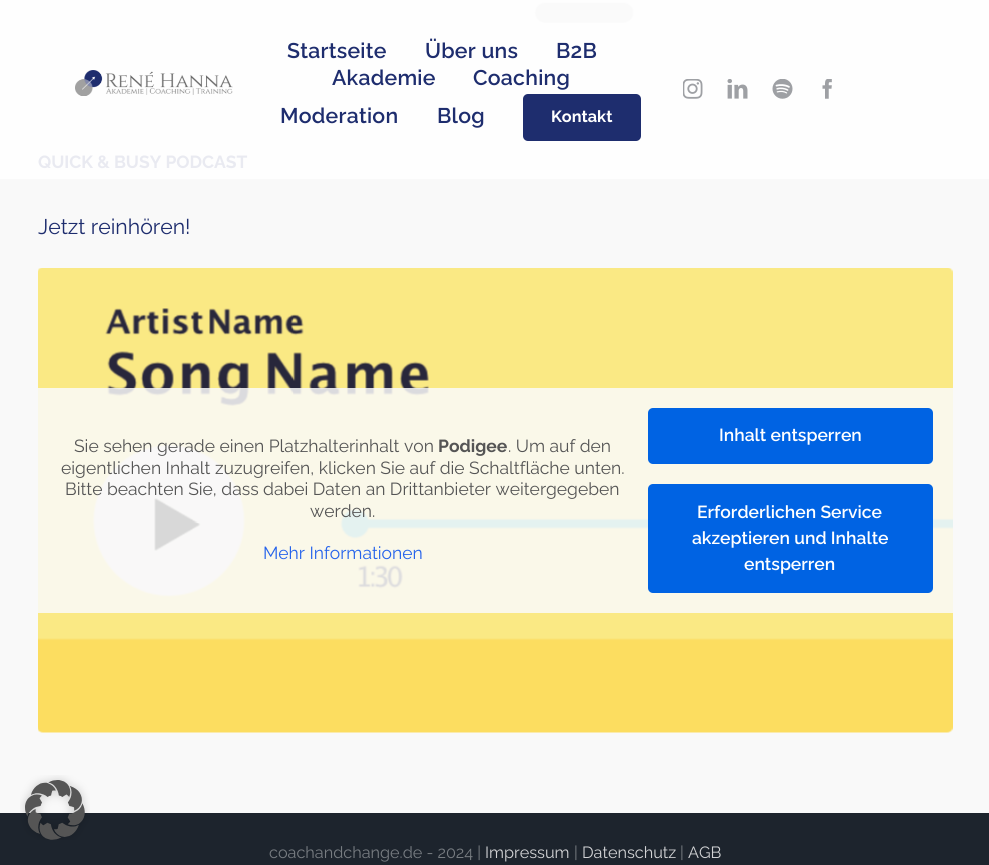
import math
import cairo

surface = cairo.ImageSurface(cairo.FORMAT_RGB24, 989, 865)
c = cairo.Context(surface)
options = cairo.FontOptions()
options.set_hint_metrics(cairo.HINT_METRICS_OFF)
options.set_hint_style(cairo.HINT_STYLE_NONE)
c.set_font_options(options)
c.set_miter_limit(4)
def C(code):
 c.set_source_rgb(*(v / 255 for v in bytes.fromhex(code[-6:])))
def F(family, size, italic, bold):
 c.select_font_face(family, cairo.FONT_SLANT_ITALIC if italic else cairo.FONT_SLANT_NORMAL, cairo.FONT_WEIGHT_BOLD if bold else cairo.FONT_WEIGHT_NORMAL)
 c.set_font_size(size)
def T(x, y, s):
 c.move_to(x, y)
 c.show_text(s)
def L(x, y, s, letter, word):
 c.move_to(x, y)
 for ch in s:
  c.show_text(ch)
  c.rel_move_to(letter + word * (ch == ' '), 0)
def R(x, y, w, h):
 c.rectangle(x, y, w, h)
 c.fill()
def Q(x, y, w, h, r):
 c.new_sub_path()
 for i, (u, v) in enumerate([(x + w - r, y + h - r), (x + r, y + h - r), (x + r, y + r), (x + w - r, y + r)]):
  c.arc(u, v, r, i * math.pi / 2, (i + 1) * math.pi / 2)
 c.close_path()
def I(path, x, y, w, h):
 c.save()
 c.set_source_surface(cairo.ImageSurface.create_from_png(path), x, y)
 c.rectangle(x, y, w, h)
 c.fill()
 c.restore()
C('f9f9f9')
c.paint()
C('fefefe')
R(0,0,989,179)
I('1.png',75,70,158,26)
I('6.png',115,0,757,51)
F('Raleway SemiBold',21.25,0,0)
C('1e2d6e')
L(287,58,'Startseite',.25,0)
L(425,58,'Über uns',.25,0)
L(556,58,'B2B',.25,0)
L(332,85,'Akademie',.25,0)
L(473,85,'Coaching',.25,0)
L(280,123,'Moderation',.25,0)
L(437,123,'Blog',.25,0)
Q(523,94,118,47,5)
c.fill()
F('Raleway',16.25,0,1)
C('ffffff')
T(551,122,'Kontakt')
I('2.png',683,79,20,20)
I('3.png',727,79,21,20)
I('4.png',772,79,21,20)
I('5.png',822,79,10,20)
F('Raleway',17.5,0,1)
C('e9eaf1')
T(38,168,'QUICK & BUSY PODCAST')
F('Raleway',21.25,0,0)
C('1e2d6e')
T(38,234,'Jetzt reinhören!')
I('7.png',38,268,915,465)
c.set_source_rgba(0.98,0.98,0.98,0.85)
R(38,388,915,225)
F('Raleway',17.5,0,0)
C('555555')
T(74,452,'Sie sehen gerade einen Platzhalterinhalt von')
F('Raleway',17.5,0,1)
T(438,452,'Podigee')
F('Raleway',17.5,0,0)
T(508,452,'. Um auf den')
T(61,474,'eigentlichen Inhalt zuzugreifen, klicken Sie auf die Schaltfläche unten.')
T(65,495,'Bitte beachten Sie, dass dabei Daten an Drittanbieter weitergegeben')
T(310,517,'werden.')
C('2563eb')
T(263,559,'Mehr Informationen')
C('0063e3')
Q(648,408,285,56,5)
c.fill()
F('Raleway SemiBold',17.5,0,0)
C('ffffff')
T(719,441,'Inhalt entsperren')
C('0063e3')
Q(648,484,285,109,5)
c.fill()
C('ffffff')
T(697,518,'Erforderlichen Service')
T(692,544,'akzeptieren und Inhalte')
T(744,570,'entsperren')
C('1d242d')
R(0,813,989,52)
F('Raleway',16.25,0,0)
C('777c81')
T(269,858,'coachandchange.de - 2024 |')
C('d2d3d5')
T(485,858,'Impressum')
C('777c81')
T(574,858,'|')
C('d2d3d5')
T(582,858,'Datenschutz')
C('777c81')
T(680,858,'|')
C('d2d3d5')
T(688,858,'AGB')
I('8.png',20,775,70,65)
surface.write_to_png('o.png')
